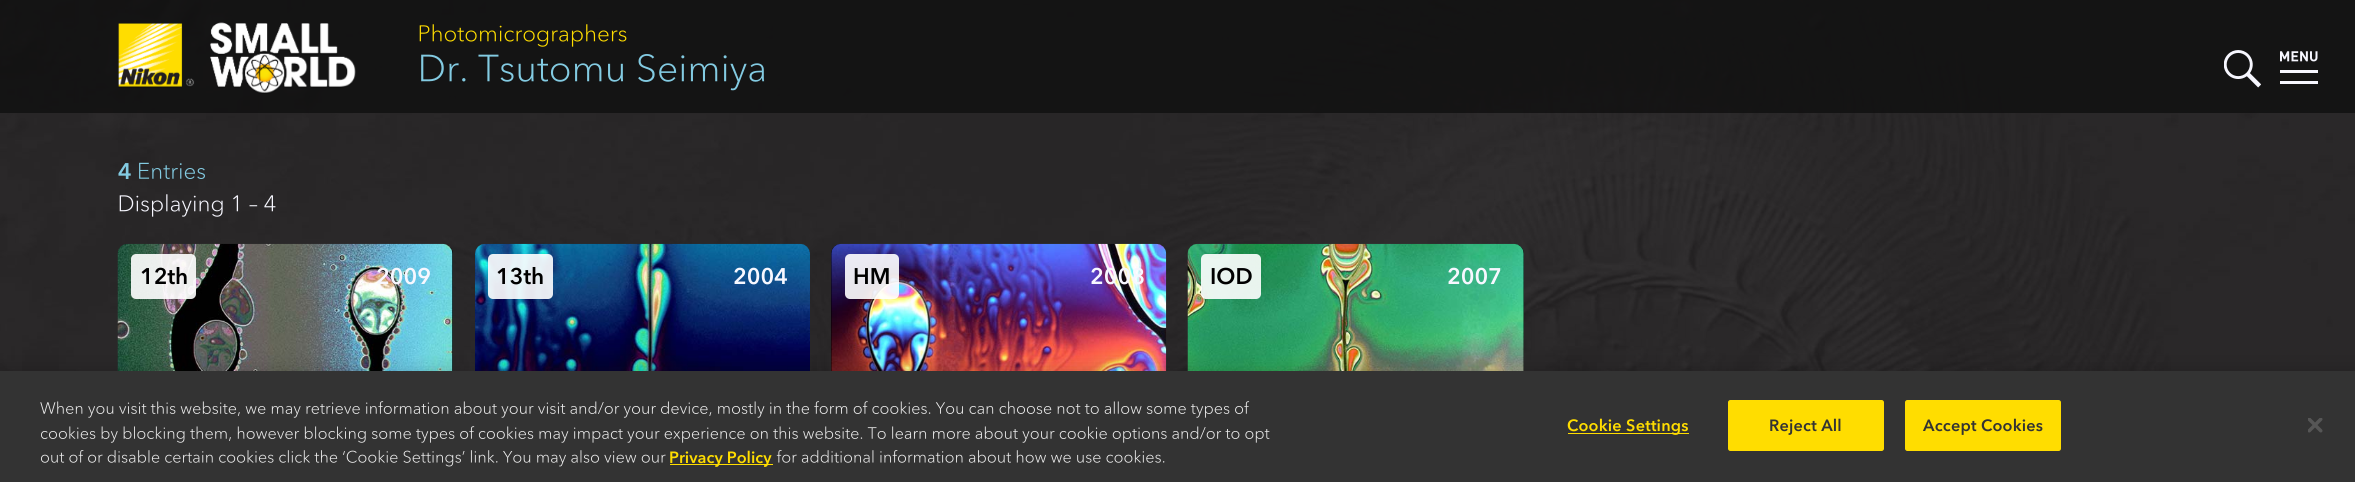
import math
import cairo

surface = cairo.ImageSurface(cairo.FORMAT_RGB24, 2355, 482)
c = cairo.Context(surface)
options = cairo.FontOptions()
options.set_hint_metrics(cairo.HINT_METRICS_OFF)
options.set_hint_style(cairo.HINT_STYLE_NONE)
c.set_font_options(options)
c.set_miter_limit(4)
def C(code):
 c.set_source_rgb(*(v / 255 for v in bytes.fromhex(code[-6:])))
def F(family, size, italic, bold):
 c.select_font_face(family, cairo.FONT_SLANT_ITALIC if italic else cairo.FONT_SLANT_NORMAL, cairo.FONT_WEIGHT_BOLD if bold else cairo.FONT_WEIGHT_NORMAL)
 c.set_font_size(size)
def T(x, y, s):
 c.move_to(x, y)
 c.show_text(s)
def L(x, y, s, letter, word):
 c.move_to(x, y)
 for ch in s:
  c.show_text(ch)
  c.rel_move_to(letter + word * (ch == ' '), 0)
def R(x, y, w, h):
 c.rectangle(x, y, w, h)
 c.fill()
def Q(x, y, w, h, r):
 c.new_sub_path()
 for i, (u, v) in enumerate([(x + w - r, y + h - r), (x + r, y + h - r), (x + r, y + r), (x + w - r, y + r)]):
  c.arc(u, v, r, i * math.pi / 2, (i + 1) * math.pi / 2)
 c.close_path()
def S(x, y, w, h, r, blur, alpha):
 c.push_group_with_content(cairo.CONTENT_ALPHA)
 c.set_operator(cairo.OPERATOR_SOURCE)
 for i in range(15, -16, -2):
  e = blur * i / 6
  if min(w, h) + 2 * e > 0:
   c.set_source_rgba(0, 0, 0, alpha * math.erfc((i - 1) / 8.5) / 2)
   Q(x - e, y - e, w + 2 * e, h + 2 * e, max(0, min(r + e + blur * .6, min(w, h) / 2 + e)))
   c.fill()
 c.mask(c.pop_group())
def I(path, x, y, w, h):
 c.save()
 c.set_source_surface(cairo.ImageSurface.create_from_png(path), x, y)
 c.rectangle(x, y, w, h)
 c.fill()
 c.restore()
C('ffffff')
c.paint()
I('1.png',0,0,2355,371)
c.set_source_rgba(0.063,0.063,0.063,0.8)
R(0,0,2355,113)
I('2.png',118,22,238,72)
I('3.png',419,24,208,23)
I('4.png',421,54,344,37)
I('5.png',2224,50,37,38)
I('6.png',2280,51,38,33)
F('Avenir Next',22.5,0,1)
C('83cbe2')
T(118,179,'4')
I('7.png',139,162,66,17)
I('8.png',119,194,157,23)
C('000000')
Q(118,244,335,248,10)
c.fill()
I('9.png',117,243,336,128)
c.set_source_rgba(1,1,1,0.9)
Q(131,254,65,45,5)
c.fill()
C('000000')
T(140,284,'12th')
C('f7f7ff')
T(376,284,'2009')
I('10.png',475,243,335,128)
c.set_source_rgba(1,1,1,0.9)
Q(488,254,65,45,5)
c.fill()
C('000000')
T(496,284,'13th')
C('f7f7ff')
T(733,284,'2004')
C('000000')
Q(831,244,335,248,10)
c.fill()
I('11.png',831,243,336,128)
c.set_source_rgba(1,1,1,0.9)
Q(845,254,54,45,5)
c.fill()
C('000000')
T(853,284,'HM')
C('f7f7ff')
T(1090,284,'2008')
C('000000')
Q(1188,244,336,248,10)
c.fill()
I('12.png',1187,243,337,128)
c.set_source_rgba(1,1,1,0.9)
Q(1201,254,60,45,5)
c.fill()
C('000000')
T(1210,284,'IOD')
C('f7f7ff')
T(1447,284,'2007')
C('000000')
S(0,371,2355,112,0,11,.2)
C('333333')
R(0,371,2355,111)
C('ffdd00')
R(1568,433,121,1)
F('Avenir Next',16.25,0,1)
L(1567,431,'Cookie Settings',.2,0)
Q(1728.5,400.5,155,50,2)
c.fill_preserve()
c.set_line_width(1)
c.stroke()
C('333333')
L(1769,431,'Reject All',.2,0)
C('ffdd00')
Q(1905.5,400.5,155,50,2)
c.fill_preserve()
c.stroke()
C('333333')
L(1923,431,'Accept Cookies',.2,0)
I('13.png',40,401,1210,17)
I('14.png',41,426,1229,17)
I('15.png',41,450,625,17)
C('ffdd00')
R(670,464,103,1)
T(669,463,'Privacy Policy')
I('16.png',776,450,389,13)
I('17.png',2308,418,15,15)
surface.write_to_png('o.png')
